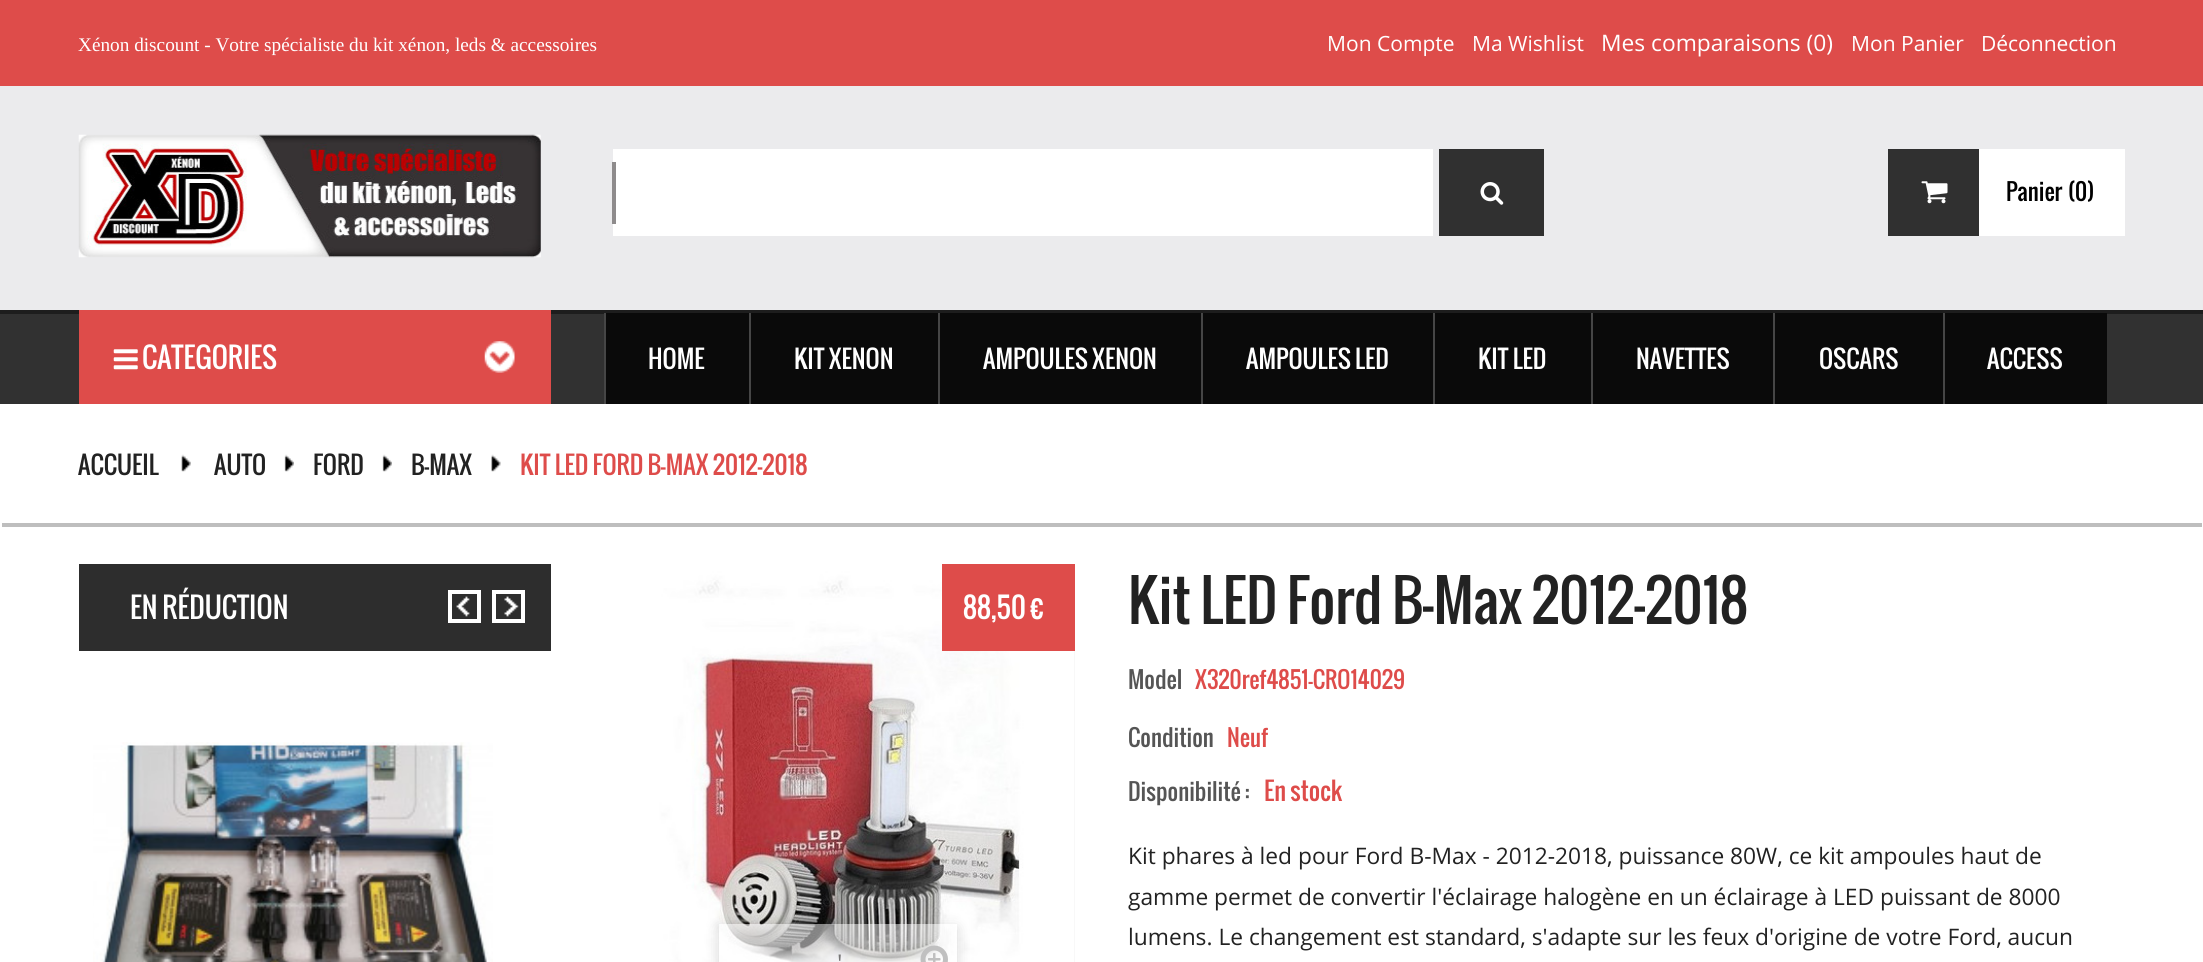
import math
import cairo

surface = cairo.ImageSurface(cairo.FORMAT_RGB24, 2203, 962)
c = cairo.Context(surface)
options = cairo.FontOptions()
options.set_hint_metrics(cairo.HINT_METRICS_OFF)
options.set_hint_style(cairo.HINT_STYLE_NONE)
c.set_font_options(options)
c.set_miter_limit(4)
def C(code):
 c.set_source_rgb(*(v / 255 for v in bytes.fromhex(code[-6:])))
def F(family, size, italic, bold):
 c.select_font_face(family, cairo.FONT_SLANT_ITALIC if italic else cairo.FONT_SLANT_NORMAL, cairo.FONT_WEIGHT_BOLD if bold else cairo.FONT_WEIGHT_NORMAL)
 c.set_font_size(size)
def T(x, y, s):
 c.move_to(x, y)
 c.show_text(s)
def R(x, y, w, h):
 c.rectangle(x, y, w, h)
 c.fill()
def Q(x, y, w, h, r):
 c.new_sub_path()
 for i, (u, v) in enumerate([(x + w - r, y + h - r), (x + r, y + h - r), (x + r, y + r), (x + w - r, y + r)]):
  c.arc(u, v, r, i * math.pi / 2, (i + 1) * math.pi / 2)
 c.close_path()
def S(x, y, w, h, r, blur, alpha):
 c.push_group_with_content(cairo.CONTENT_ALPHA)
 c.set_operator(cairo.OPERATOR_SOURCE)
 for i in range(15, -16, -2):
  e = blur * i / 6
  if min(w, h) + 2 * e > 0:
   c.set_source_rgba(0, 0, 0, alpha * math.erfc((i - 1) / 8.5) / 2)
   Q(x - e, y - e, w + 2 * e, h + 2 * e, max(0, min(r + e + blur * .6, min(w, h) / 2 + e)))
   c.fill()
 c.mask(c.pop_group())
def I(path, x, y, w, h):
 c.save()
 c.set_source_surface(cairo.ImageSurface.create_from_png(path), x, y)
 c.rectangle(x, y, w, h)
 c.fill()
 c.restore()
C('ffffff')
c.paint()
C('de4c4a')
R(0,0,2203,86)
F('Liberation Serif',19.25,0,0)
C('ffffff')
T(78,51,'Xénon discount - Votre spécialiste du kit xénon, leds & accessoires')
F('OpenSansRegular',21,0,0)
T(1327,51,'Mon Compte')
T(1472,51,'Ma Wishlist')
F('OpenSansRegular',22.75,0,0)
T(1601,51,'Mes comparaisons (0)')
F('OpenSansRegular',21,0,0)
T(1851,51,'Mon Panier')
T(1981,51,'Déconnection')
C('ebebed')
R(0,86,2203,224)
I('1.png',78,134,463,124)
C('ffffff')
R(613,149,820,87)
C('8e8b8c')
R(612,162,4,62)
C('303030')
R(1439,149,105,87)
I('2.png',1480,182,24,23)
C('ffffff')
R(1979,149,146,87)
C('303030')
R(1888,149,91,87)
I('3.png',1921,181,27,23)
F('Oswald',22.75,0,0)
C('000000')
T(2006,201,'Panier')
T(2068,201,'(0)')
C('313131')
R(0,314,2203,90)
C('1d1d1d')
R(0,310,2203,4)
C('de4c4a')
R(79,310,472,94)
I('4.png',484,341,31,32)
I('5.png',113,349,25,21)
F('Oswald',28,0,0)
C('ffffff')
T(142,369,'CATEGORIES')
C('0a0a0a')
R(606,313,1501,91)
C('464646')
R(604,313,2,91)
F('Oswald',24.5,0,0)
C('ffffff')
T(648,369,'HOME')
C('464646')
R(749,313,2,91)
C('ffffff')
T(794,369,'KIT XENON')
C('464646')
R(938,313,2,91)
C('ffffff')
T(983,369,'AMPOULES XENON')
C('464646')
R(1201,313,2,91)
C('ffffff')
T(1246,369,'AMPOULES LED')
C('464646')
R(1433,313,2,91)
C('ffffff')
T(1478,369,'KIT LED')
C('464646')
R(1591,313,2,91)
C('ffffff')
T(1636,369,'NAVETTES')
C('464646')
R(1773,313,2,91)
C('ffffff')
T(1819,369,'OSCARS')
C('464646')
R(1943,313,2,91)
C('ffffff')
T(1987,369,'ACCESS')
C('bebebe')
R(2,523,2200,4)
C('222222')
T(78,475,'ACCUEIL')
I('6.png',181,454,10,18)
T(214,475,'AUTO')
I('7.png',284,454,10,18)
T(313,475,'FORD')
I('7.png',382,454,10,18)
T(411,475,'B-MAX')
I('8.png',491,454,10,18)
C('de4c4a')
T(520,475,'KIT LED FORD B-MAX 2012-2018')
C('2d2d2d')
R(79,564,472,87)
F('Oswald',28,0,0)
C('ffffff')
T(130,619,'EN RÉDUCTION')
I('9.png',456,596,14,21)
c.rectangle(450,592,29,29)
c.set_line_width(4)
c.stroke()
I('10.png',504,596,15,21)
c.rectangle(494,592,29,29)
c.stroke()
I('11.png',93,742,400,220)
C('f1f1f1')
R(1074,651,1,311)
I('12.png',604,564,471,398)
C('de4c4a')
R(942,564,133,87)
C('ffffff')
T(963,619,'88,50 €')
c.save()
c.set_fill_rule(cairo.FILL_RULE_EVEN_ODD)
c.new_path()
c.move_to(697,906)
c.line_to(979,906)
c.line_to(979,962)
c.line_to(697,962)
c.close_path()
c.move_to(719,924)
c.line_to(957,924)
c.line_to(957,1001)
c.line_to(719,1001)
c.close_path()
c.clip()
C('000000')
S(719,928,238,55,0,7,.16)
c.restore()
c.set_source_rgba(1,1,1,0.5)
R(719,924,231,38)
F('OpenSansRegular',24.5,0,0)
C('777676')
T(837,972,'\'')
I('13.png',920,945,28,17)
F('Oswald',56,0,0)
C('222222')
T(1128,624,'Kit LED Ford B-Max 2012-2018')
F('Oswald',22.75,0,0)
C('555555')
T(1128,689,'Model')
C('de4c4a')
T(1195,689,'X320ref4851-CRO14029')
C('555555')
T(1128,747,'Condition')
C('de4c4a')
T(1227,747,'Neuf')
C('555555')
T(1128,801,'Disponibilité :')
F('Oswald',24.5,0,0)
C('de4c4a')
T(1264,801,'En stock')
F('OpenSansRegular',22.75,0,0)
C('222222')
T(1128,864,'Kit phares à led pour Ford B-Max - 2012-2018, puissance 80W, ce kit ampoules haut de')
T(1128,905,'gamme permet de convertir l\'éclairage halogène en un éclairage à LED puissant de 8000')
T(1128,945,'lumens. Le changement est standard, s\'adapte sur les feux d\'origine de votre Ford, aucun')
surface.write_to_png('o.png')
